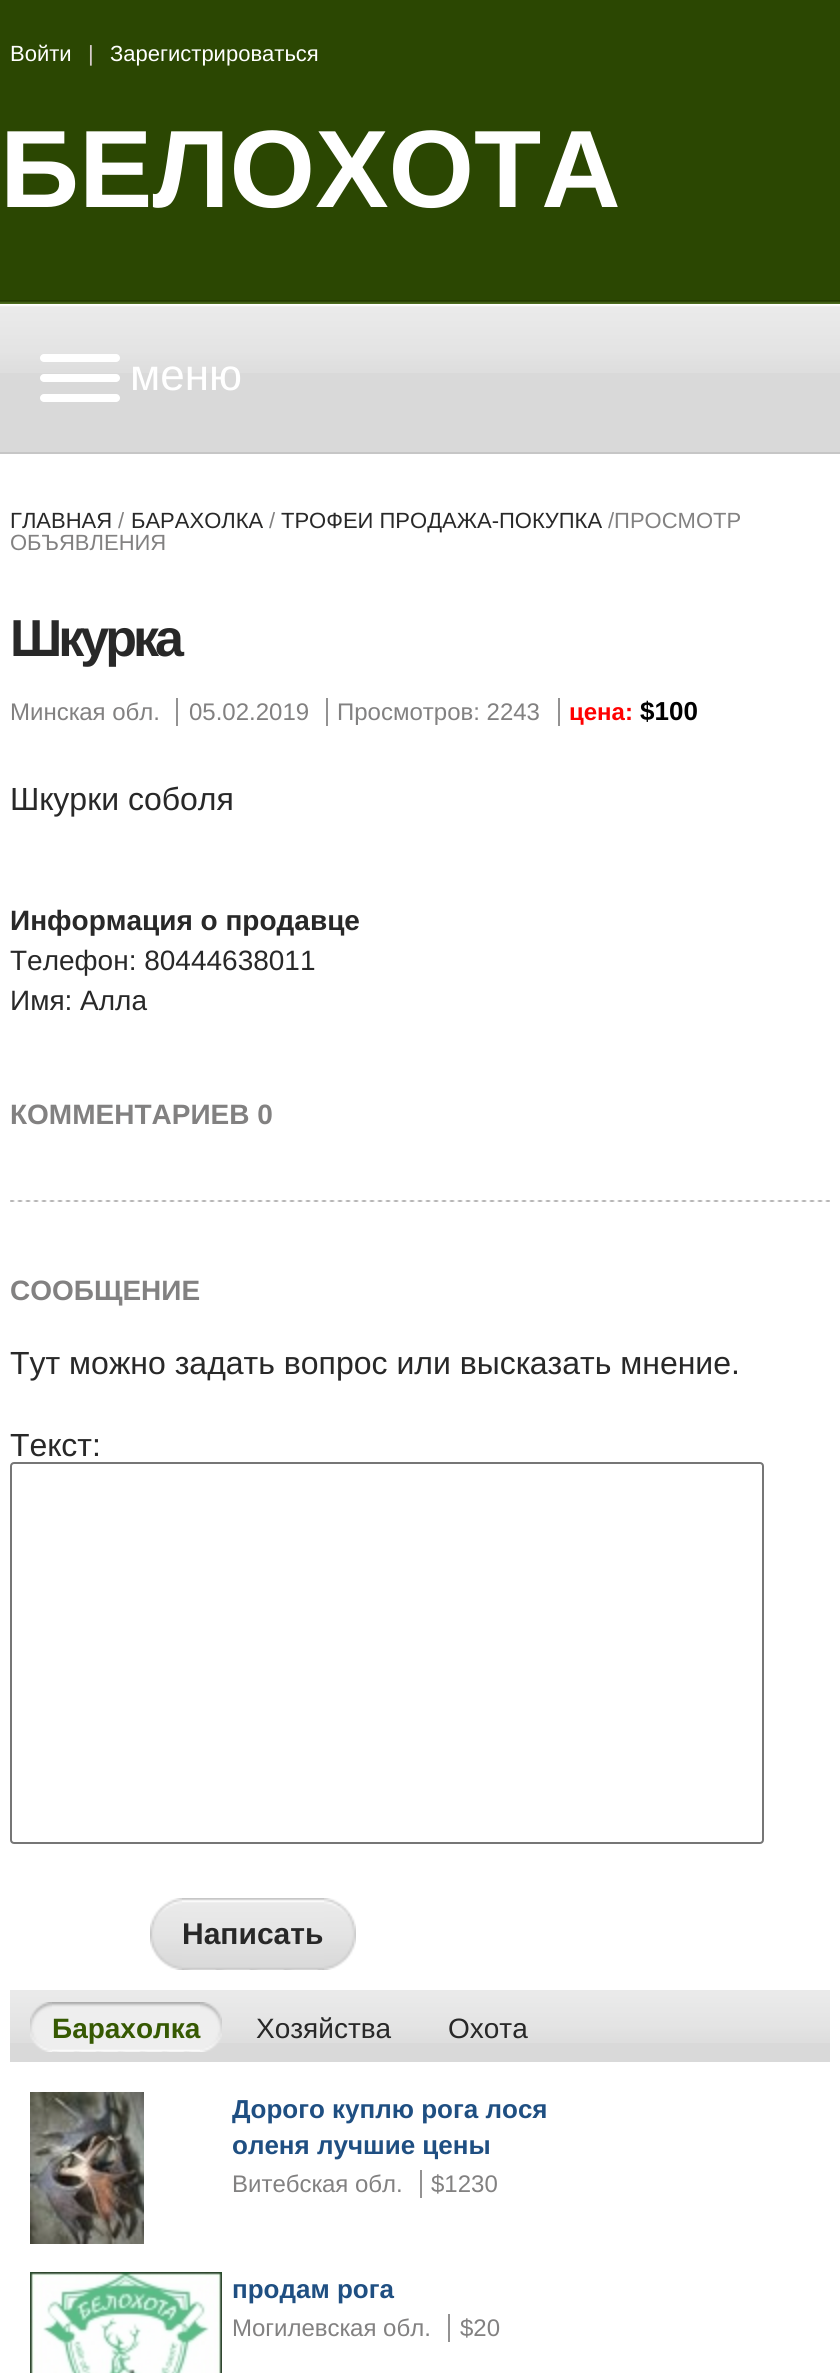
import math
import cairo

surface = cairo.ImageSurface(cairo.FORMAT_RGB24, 840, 2373)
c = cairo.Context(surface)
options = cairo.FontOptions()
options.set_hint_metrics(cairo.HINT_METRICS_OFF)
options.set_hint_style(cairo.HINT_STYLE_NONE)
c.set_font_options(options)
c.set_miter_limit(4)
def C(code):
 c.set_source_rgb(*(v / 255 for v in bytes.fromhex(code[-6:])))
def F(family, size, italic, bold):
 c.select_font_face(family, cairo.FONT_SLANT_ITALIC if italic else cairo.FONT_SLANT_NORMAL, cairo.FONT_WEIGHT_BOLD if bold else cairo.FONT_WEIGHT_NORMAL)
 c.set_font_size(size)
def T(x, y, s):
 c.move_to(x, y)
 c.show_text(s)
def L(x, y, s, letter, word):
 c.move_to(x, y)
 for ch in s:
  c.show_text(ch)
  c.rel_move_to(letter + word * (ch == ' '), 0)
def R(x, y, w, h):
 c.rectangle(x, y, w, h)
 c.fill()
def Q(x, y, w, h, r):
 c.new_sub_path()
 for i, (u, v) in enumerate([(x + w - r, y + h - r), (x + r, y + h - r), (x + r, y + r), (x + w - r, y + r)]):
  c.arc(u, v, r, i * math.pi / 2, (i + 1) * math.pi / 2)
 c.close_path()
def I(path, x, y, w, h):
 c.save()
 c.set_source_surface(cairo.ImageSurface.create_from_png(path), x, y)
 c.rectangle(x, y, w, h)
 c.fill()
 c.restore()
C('365902')
c.paint()
I('1.png',0,300,840,4)
C('2b4702')
R(0,0,840,300)
F('Liberation Sans',22,0,0)
C('ffffff')
T(10,61,'Войти')
C('d7cdcd')
T(88,61,'|')
C('ffffff')
T(110,61,'Зарегистрироваться')
F('Liberation Sans',110,0,1)
T(0,207,'БЕЛОХОТА')
C('d9d9d9')
R(0,373,840,79)
I('2.png',0,304,840,69)
C('c6c6c6')
R(0,452,840,2)
C('ffffff')
Q(40,394,80,8,4)
c.fill()
Q(40,354,80,8,4)
c.fill()
Q(40,374,80,8,4)
c.fill()
F('Liberation Sans',44,0,0)
T(130,390,'меню')
R(0,454,840,1919)
F('Liberation Sans',22,0,0)
C('282828')
T(10,528,'ГЛАВНАЯ')
C('828181')
T(118,528,'/')
C('282828')
T(131,528,'БАРАХОЛКА')
C('828181')
T(269,528,'/')
C('282828')
T(281,528,'ТРОФЕИ ПРОДАЖА-ПОКУПКА')
C('828181')
T(608,528,'/ПРОСМОТР')
T(10,550,'ОБЪЯВЛЕНИЯ')
F('Liberation Sans',52,0,1)
C('282828')
L(10,656,'Шкурка',-4,0)
F('Liberation Sans',24,0,0)
C('828181')
T(10,720,'Минская обл.')
T(189,720,'05.02.2019')
C('939292')
R(176,698,2,28)
C('828181')
T(337,720,'Просмотров: 2243')
C('939292')
R(326,698,2,28)
F('Liberation Sans',24,0,1)
C('ff0000')
T(569,720,'цена:')
C('939292')
R(558,698,2,28)
F('Liberation Sans',26,0,1)
C('000000')
T(640,720,'$100')
F('Liberation Sans',32,0,0)
C('282828')
T(10,810,'Шкурки соболя')
F('Liberation Sans',28,0,1)
T(10,930,'Информация о продавце')
F('Liberation Sans',28,0,0)
T(10,970,'Телефон: 80444638011')
T(10,1010,'Имя: Алла')
I('3.png',10,1200,820,2)
F('Liberation Sans',28,0,1)
C('828181')
T(10,1124,'КОММЕНТАРИЕВ 0')
T(10,1300,'СООБЩЕНИЕ')
F('Liberation Sans',32,0,0)
C('282828')
T(10,1374,'Тут можно задать вопрос или высказать мнение.')
T(10,1456,'Текст:')
Q(11,1463,752,380,3)
C('767676')
c.stroke()
I('4.png',150,1898,34,72)
I('5.png',322,1898,34,72)
I('6.png',182,1898,142,72)
F('Liberation Sans',30,0,1)
C('282828')
T(182,1944,'Написать')
C('d9d9d9')
R(10,2043,820,19)
I('7.png',10,1990,820,53)
I('8.png',30,2002,22,50)
I('9.png',200,2002,22,50)
I('10.png',52,2002,148,50)
F('Liberation Sans',28,0,1)
C('365902')
T(52,2038,'Барахолка')
F('Liberation Sans',28,0,0)
C('282828')
T(256,2038,'Хозяйства')
T(448,2038,'Охота')
I('11.png',30,2092,114,152)
F('Liberation Sans',26,0,1)
C('1f4f82')
T(232,2118,'Дорого куплю рога лося')
T(232,2154,'оленя лучшие цены')
F('Liberation Sans',24,0,0)
C('828181')
T(232,2192,'Витебская обл.')
T(431,2192,'$1230')
C('939292')
R(420,2170,2,28)
I('12.png',30,2272,192,101)
F('Liberation Sans',26,0,1)
C('1f4f82')
T(232,2298,'продам рога')
F('Liberation Sans',24,0,0)
C('828181')
T(232,2336,'Могилевская обл.')
T(460,2336,'$20')
C('939292')
R(448,2314,2,28)
surface.write_to_png('o.png')
